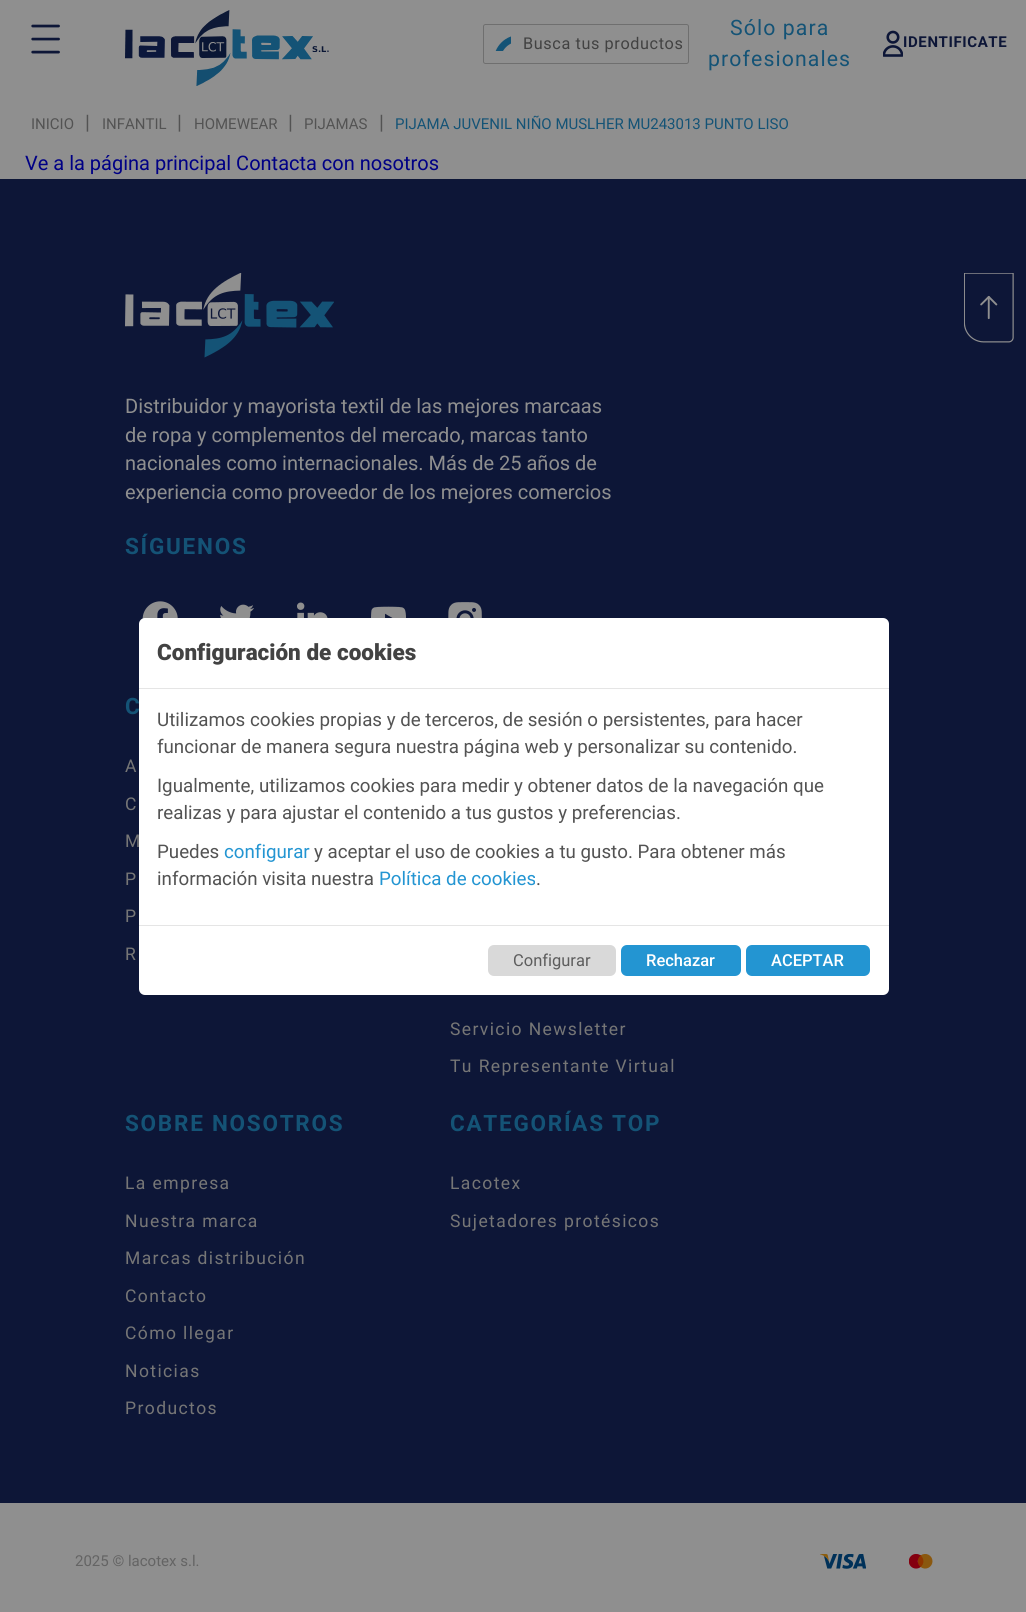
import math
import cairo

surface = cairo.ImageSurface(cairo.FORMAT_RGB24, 1026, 1612)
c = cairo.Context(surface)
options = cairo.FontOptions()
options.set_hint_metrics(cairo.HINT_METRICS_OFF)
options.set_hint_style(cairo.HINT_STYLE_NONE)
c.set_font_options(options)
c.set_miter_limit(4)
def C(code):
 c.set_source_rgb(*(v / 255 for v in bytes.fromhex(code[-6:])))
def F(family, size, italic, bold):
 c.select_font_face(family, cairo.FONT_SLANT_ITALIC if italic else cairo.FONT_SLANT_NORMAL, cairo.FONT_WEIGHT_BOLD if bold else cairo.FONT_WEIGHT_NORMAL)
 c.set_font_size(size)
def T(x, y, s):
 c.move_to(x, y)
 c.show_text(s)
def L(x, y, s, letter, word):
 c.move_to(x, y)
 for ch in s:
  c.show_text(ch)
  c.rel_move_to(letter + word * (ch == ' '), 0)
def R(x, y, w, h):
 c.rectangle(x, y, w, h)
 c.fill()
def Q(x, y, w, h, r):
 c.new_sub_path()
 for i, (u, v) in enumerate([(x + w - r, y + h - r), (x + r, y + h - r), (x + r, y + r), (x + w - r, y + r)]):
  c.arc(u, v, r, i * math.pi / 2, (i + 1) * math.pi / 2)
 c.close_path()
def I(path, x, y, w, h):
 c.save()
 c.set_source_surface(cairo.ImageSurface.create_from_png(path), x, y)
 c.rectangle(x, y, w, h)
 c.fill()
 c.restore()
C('8f8f8f')
c.paint()
I('1.png',31,24,29,30)
I('2.png',125,10,204,76)
Q(483.5,24.5,205,39,2)
C('6f6f6f')
c.set_line_width(1)
c.stroke()
I('3.png',495,36,16,15)
F('Roboto',16.25,0,0)
C('424242')
L(523,49,'Busca tus productos',.6,0)
F('Roboto',21.25,0,0)
C('145376')
L(730,35,'Sólo para',1.1,0)
L(708,66,'profesionales',1.1,0)
I('4.png',883,30,20,27)
F('Roboto',15,0,1)
C('0d1637')
L(903,47,'IDENTIFICATE',.6,0)
F('Roboto',15,0,0)
C('535353')
T(31,129,'INICIO')
F('Roboto',20,0,0)
T(85,129,'|')
F('Roboto',15,0,0)
T(102,129,'INFANTIL')
F('Roboto',20,0,0)
T(177,129,'|')
F('Roboto',15,0,0)
T(194,129,'HOMEWEAR')
F('Roboto',20,0,0)
T(288,129,'|')
F('Roboto',15,0,0)
T(304,129,'PIJAMAS')
F('Roboto',20,0,0)
T(379,129,'|')
F('Roboto',15,0,0)
C('145376')
T(395,129,'PIJAMA JUVENIL NIÑO MUSLHER MU243013 PUNTO LISO')
F('Roboto',20,0,0)
C('000085')
T(25,170,'Ve a la página principal Contacta con nosotros')
C('0d1637')
R(0,179,1026,1324)
I('5.png',964,273,50,70)
I('6.png',125,273,209,85)
C('8f8f8f')
T(125,413,'Distribuidor y mayorista textil de las mejores marcaas')
T(125,442,'de ropa y complementos del mercado, marcas tanto')
T(125,470,'nacionales como internacionales. Más de 25 años de')
T(125,499,'experiencia como proveedor de los mejores comercios')
F('Roboto',22.5,0,1)
C('145376')
L(125,554,'SÍGUENOS',1.75,0)
I('7.png',142,601,36,18)
I('8.png',220,604,34,14)
I('9.png',297,602,31,16)
I('10.png',371,606,35,12)
I('11.png',448,602,34,16)
L(125,714,'C',1.75,0)
F('Roboto',17.5,0,0)
C('767676')
L(125,772,'A',1.4,0)
L(125,810,'C',1.4,0)
L(125,847,'M',1.4,0)
L(125,885,'P',1.4,0)
L(125,922,'P',1.4,0)
L(125,960,'R',1.4,0)
L(450,1035,'Servicio Newsletter',1.4,0)
L(450,1072,'Tu Representante Virtual',1.4,0)
F('Roboto',22.5,0,1)
C('145376')
L(125,1131,'SOBRE NOSOTROS',1.75,0)
F('Roboto',17.5,0,0)
C('767676')
L(125,1189,'La empresa',1.4,0)
L(125,1227,'Nuestra marca',1.4,0)
L(125,1264,'Marcas distribución',1.4,0)
L(125,1302,'Contacto',1.4,0)
L(125,1339,'Cómo llegar',1.4,0)
L(125,1377,'Noticias',1.4,0)
L(125,1414,'Productos',1.4,0)
F('Roboto',22.5,0,1)
C('145376')
L(450,1131,'CATEGORÍAS TOP',1.75,0)
F('Roboto',17.5,0,0)
C('767676')
L(450,1189,'Lacotex',1.4,0)
L(450,1227,'Sujetadores protésicos',1.4,0)
F('Roboto',15,0,0)
C('646464')
T(75,1566,'2025 © lacotex s.l.')
I('12.png',820,1554,46,15)
I('13.png',909,1554,24,15)
C('ffffff')
Q(139,618,750,377,6)
c.fill()
C('e5e5e5')
R(139,688,750,1)
F('Roboto Black',22.5,0,0)
C('424242')
T(157,660,'Configuración de cookies')
F('Roboto',18.75,0,0)
C('535353')
T(157,726,'Utilizamos cookies propias y de terceros, de sesión o persistentes, para hacer')
T(157,753,'funcionar de manera segura nuestra página web y personalizar su contenido.')
T(157,792,'Igualmente, utilizamos cookies para medir y obtener datos de la navegación que')
T(157,819,'realizas y para ajustar el contenido a tus gustos y preferencias.')
T(157,858,'Puedes')
C('2395d2')
T(224,858,'configurar')
C('535353')
T(314,858,'y aceptar el uso de cookies a tu gusto. Para obtener más')
T(157,885,'información visita nuestra')
C('2395d2')
T(379,885,'Política de cookies')
C('535353')
T(536,885,'.')
C('e5e5e5')
R(139,925,750,1)
C('d9d9d9')
Q(488,945,128,31,6)
c.fill()
F('Roboto',16.5,0,0)
C('5d5d5d')
T(513,966,'Configurar')
C('2395d2')
Q(621,945,120,31,6)
c.fill()
F('Roboto Medium',16.5,0,0)
C('ffffff')
T(646,966,'Rechazar')
C('2395d2')
Q(746,945,124,31,6)
c.fill()
C('ffffff')
T(771,966,'ACEPTAR')
surface.write_to_png('o.png')
